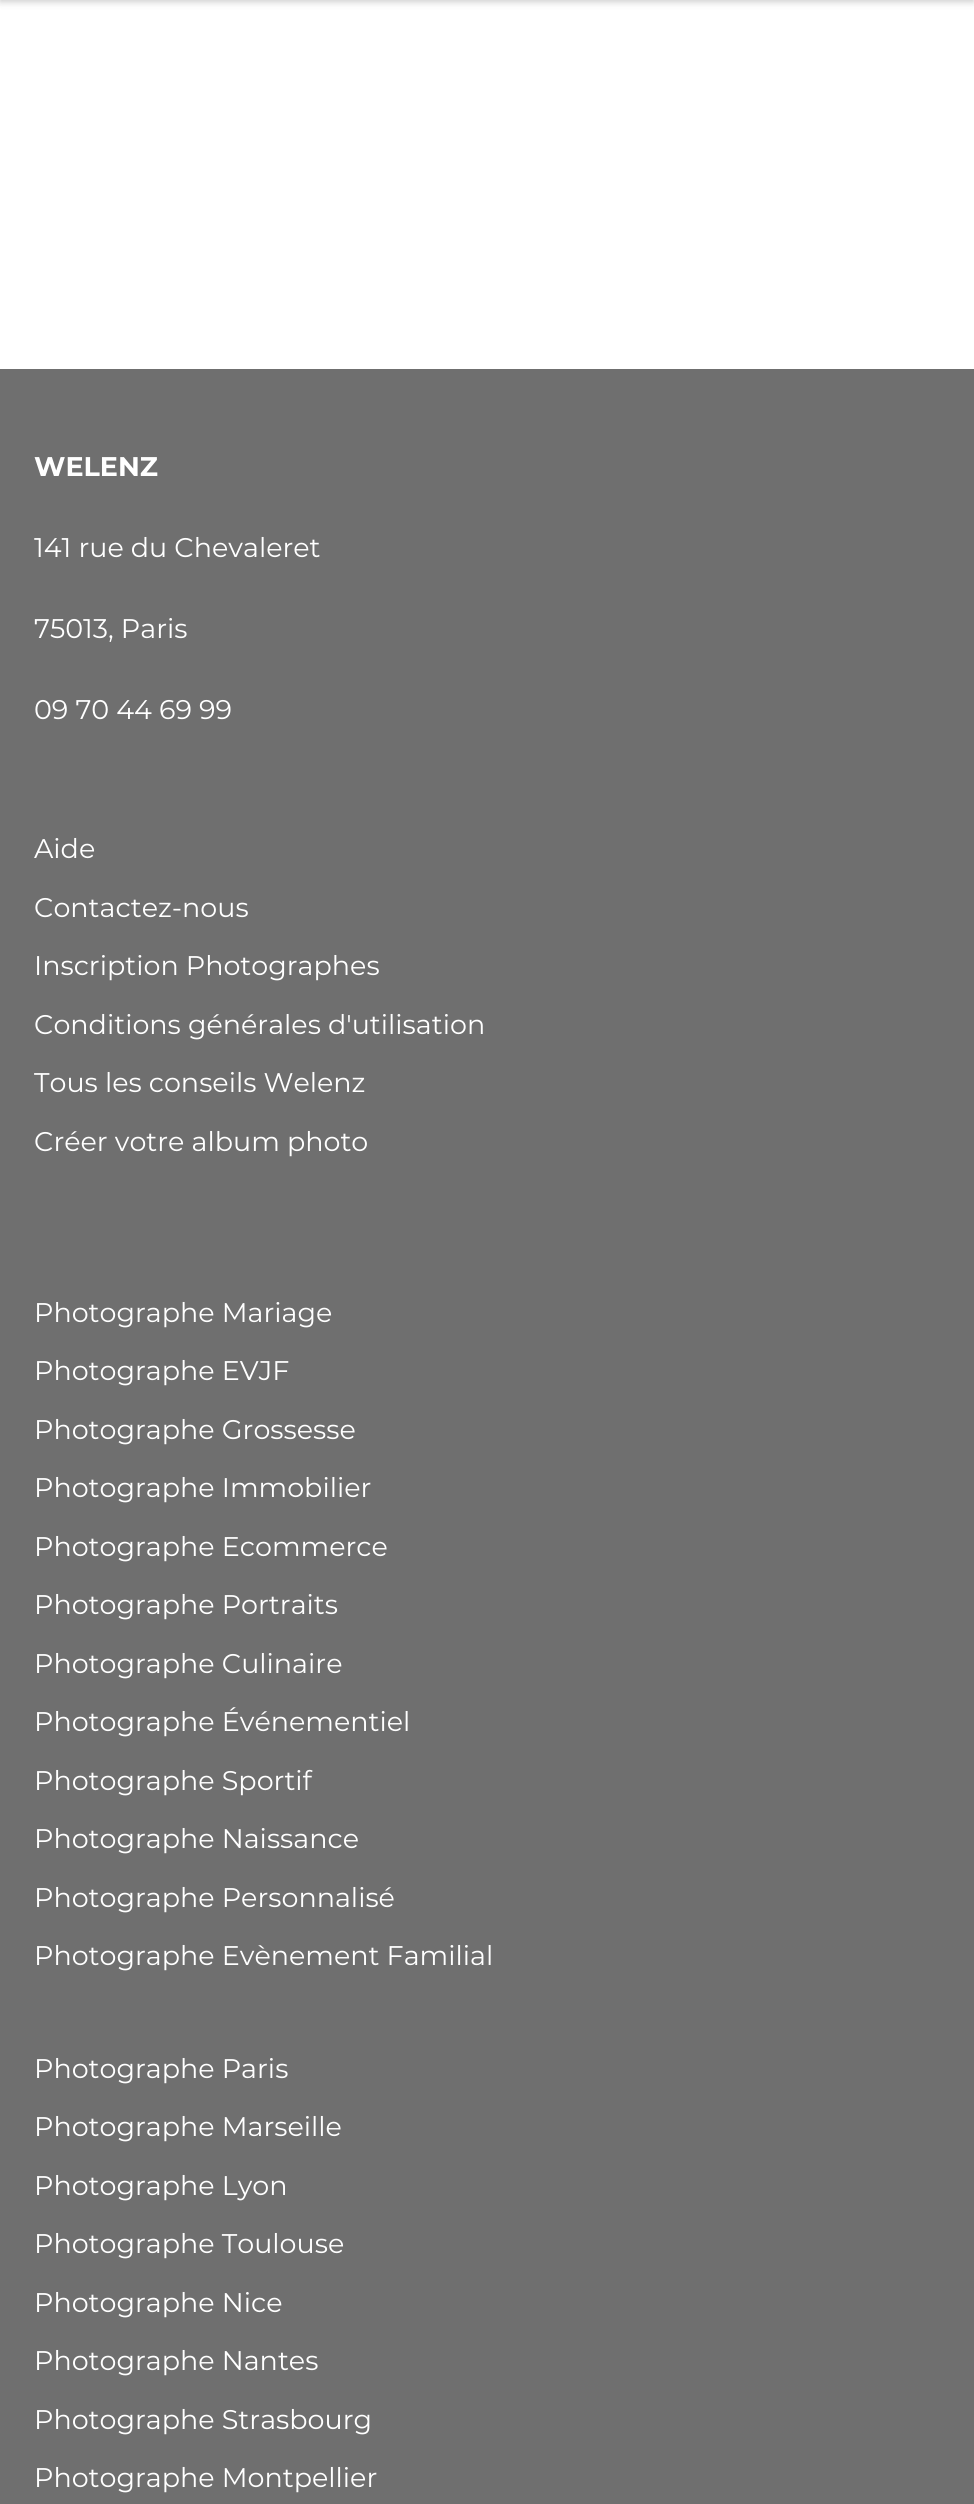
import math
import cairo

surface = cairo.ImageSurface(cairo.FORMAT_RGB24, 974, 2504)
c = cairo.Context(surface)
options = cairo.FontOptions()
options.set_hint_metrics(cairo.HINT_METRICS_OFF)
options.set_hint_style(cairo.HINT_STYLE_NONE)
c.set_font_options(options)
c.set_miter_limit(4)
def C(code):
 c.set_source_rgb(*(v / 255 for v in bytes.fromhex(code[-6:])))
def F(family, size, italic, bold):
 c.select_font_face(family, cairo.FONT_SLANT_ITALIC if italic else cairo.FONT_SLANT_NORMAL, cairo.FONT_WEIGHT_BOLD if bold else cairo.FONT_WEIGHT_NORMAL)
 c.set_font_size(size)
def T(x, y, s):
 c.move_to(x, y)
 c.show_text(s)
def R(x, y, w, h):
 c.rectangle(x, y, w, h)
 c.fill()
def Q(x, y, w, h, r):
 c.new_sub_path()
 for i, (u, v) in enumerate([(x + w - r, y + h - r), (x + r, y + h - r), (x + r, y + r), (x + w - r, y + r)]):
  c.arc(u, v, r, i * math.pi / 2, (i + 1) * math.pi / 2)
 c.close_path()
def S(x, y, w, h, r, blur, alpha):
 c.push_group_with_content(cairo.CONTENT_ALPHA)
 c.set_operator(cairo.OPERATOR_SOURCE)
 for i in range(15, -16, -2):
  e = blur * i / 6
  if min(w, h) + 2 * e > 0:
   c.set_source_rgba(0, 0, 0, alpha * math.erfc((i - 1) / 8.5) / 2)
   Q(x - e, y - e, w + 2 * e, h + 2 * e, max(0, min(r + e + blur * .6, min(w, h) / 2 + e)))
   c.fill()
 c.mask(c.pop_group())
C('ffffff')
c.paint()
C('000000')
S(0,-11,974,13,0,3.5,.2)
C('6f6f6f')
R(0,369,974,2135)
F('Montserrat',27,0,1)
C('ffffff')
T(34,476,'WELENZ')
F('Montserrat',27,0,0)
T(34,557,'141 rue du Chevaleret')
T(34,638,'75013, Paris')
T(34,719,'09 70 44 69 99')
T(34,858,'Aide')
T(34,917,'Contactez-nous')
T(34,975,'Inscription Photographes')
T(34,1034,'Conditions générales d\'utilisation')
T(34,1092,'Tous les conseils Welenz')
T(34,1151,'Créer votre album photo')
T(34,1322,'Photographe Mariage')
T(34,1380,'Photographe EVJF')
T(34,1439,'Photographe Grossesse')
T(34,1497,'Photographe Immobilier')
T(34,1556,'Photographe Ecommerce')
T(34,1614,'Photographe Portraits')
T(34,1673,'Photographe Culinaire')
T(34,1731,'Photographe Événementiel')
T(34,1790,'Photographe Sportif')
T(34,1848,'Photographe Naissance')
T(34,1907,'Photographe Personnalisé')
T(34,1965,'Photographe Evènement Familial')
T(34,2078,'Photographe Paris')
T(34,2136,'Photographe Marseille')
T(34,2195,'Photographe Lyon')
T(34,2253,'Photographe Toulouse')
T(34,2312,'Photographe Nice')
T(34,2370,'Photographe Nantes')
T(34,2429,'Photographe Strasbourg')
T(34,2487,'Photographe Montpellier')
surface.write_to_png('o.png')
